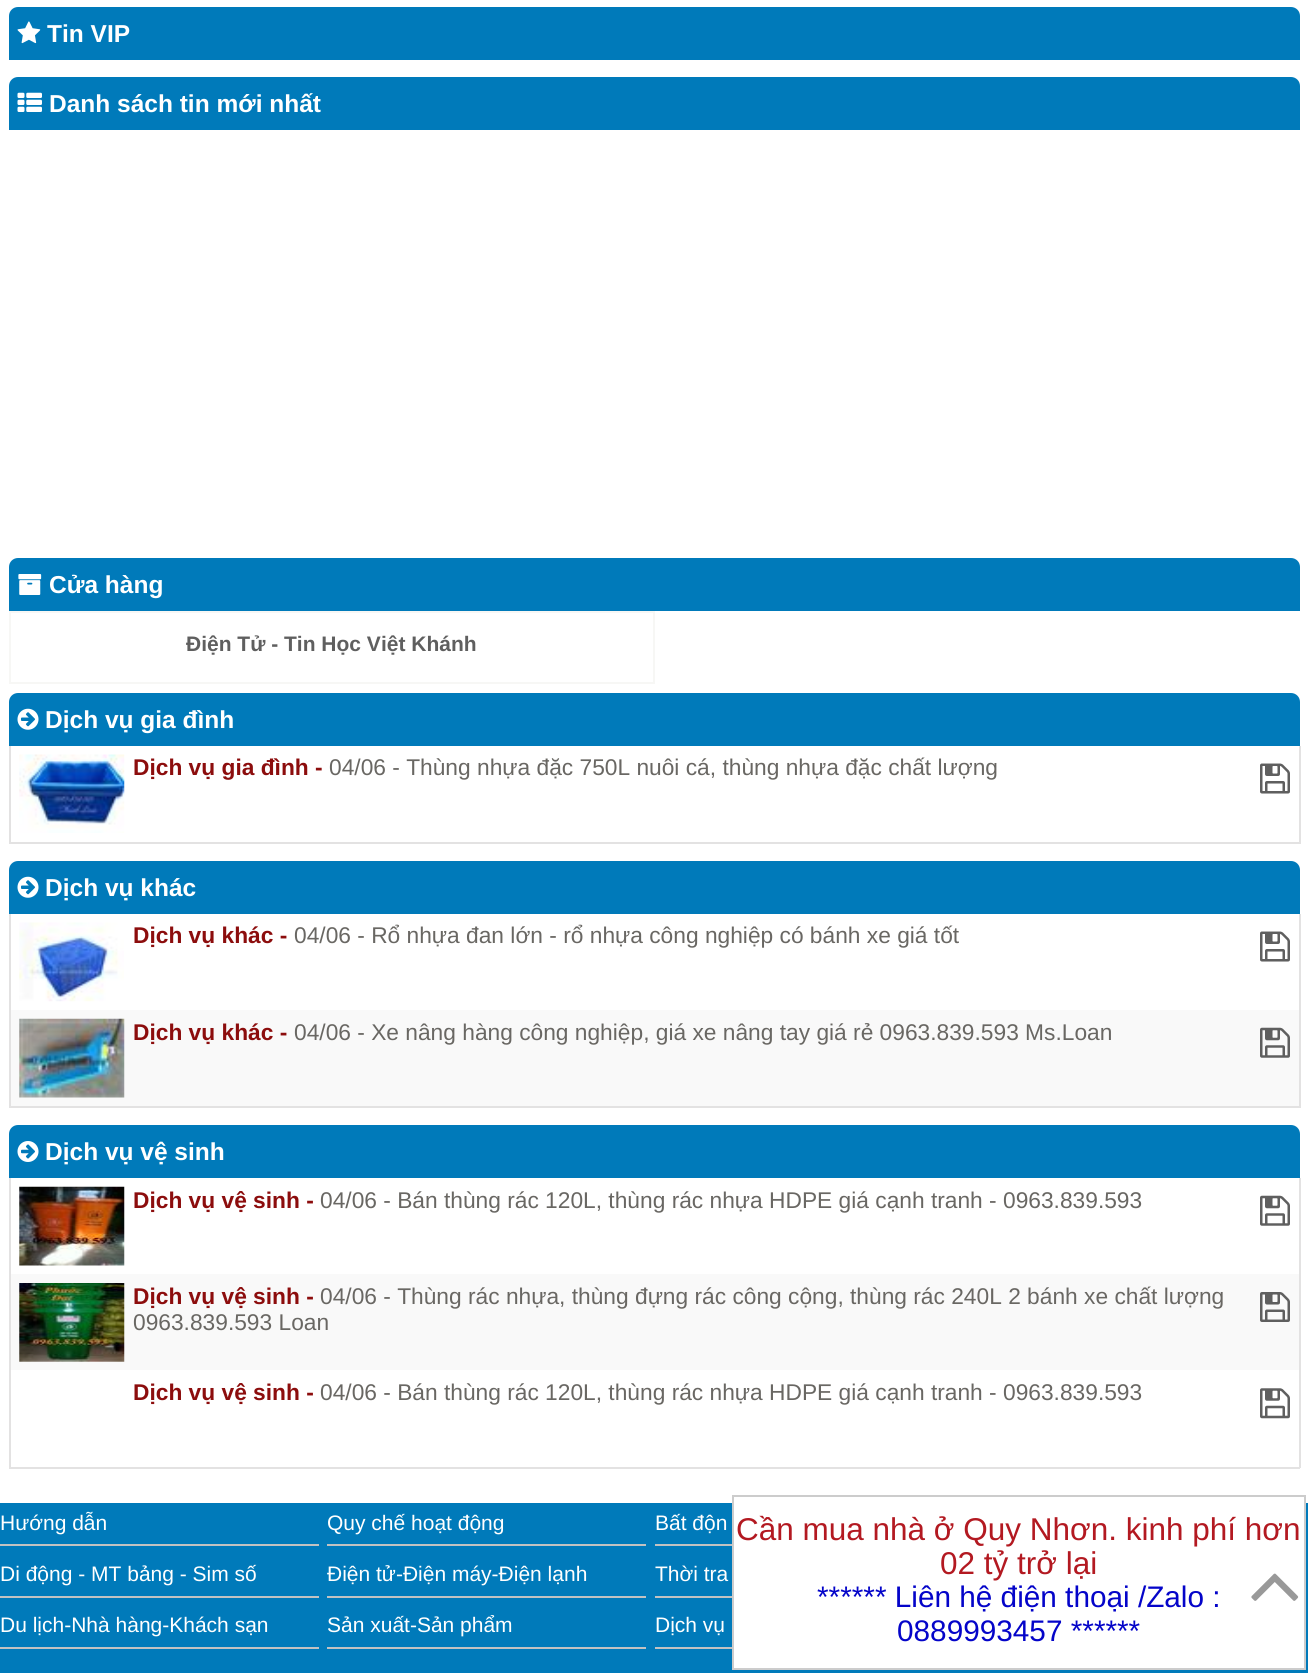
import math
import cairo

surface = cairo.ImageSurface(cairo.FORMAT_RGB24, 1308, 1673)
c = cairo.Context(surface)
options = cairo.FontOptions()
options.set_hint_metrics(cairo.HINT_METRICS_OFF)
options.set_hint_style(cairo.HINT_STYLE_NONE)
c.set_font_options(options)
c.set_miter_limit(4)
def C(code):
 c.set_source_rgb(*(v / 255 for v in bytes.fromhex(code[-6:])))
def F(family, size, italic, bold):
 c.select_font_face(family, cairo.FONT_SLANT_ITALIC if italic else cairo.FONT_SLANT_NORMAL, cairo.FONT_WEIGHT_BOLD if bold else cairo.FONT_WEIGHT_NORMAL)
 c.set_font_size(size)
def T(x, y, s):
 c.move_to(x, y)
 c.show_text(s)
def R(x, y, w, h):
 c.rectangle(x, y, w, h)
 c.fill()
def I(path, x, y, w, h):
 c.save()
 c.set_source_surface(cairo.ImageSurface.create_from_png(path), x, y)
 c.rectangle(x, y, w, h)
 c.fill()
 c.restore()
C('ffffff')
c.paint()
C('007aba')
c.new_path()
c.move_to(18,7)
c.line_to(1291,7)
c.curve_to(1296,7,1300,11,1300,16)
c.line_to(1300,60)
c.line_to(9,60)
c.line_to(9,16)
c.curve_to(9,11,13,7,18,7)
c.close_path()
c.fill()
I('1.png',17,21,24,23)
F('Liberation Sans',24.5,0,1)
C('ffffff')
T(47,42,'Tin VIP')
C('007aba')
c.new_path()
c.move_to(18,77)
c.line_to(1291,77)
c.curve_to(1296,77,1300,81,1300,86)
c.line_to(1300,130)
c.line_to(9,130)
c.line_to(9,86)
c.curve_to(9,81,13,77,18,77)
c.close_path()
c.fill()
I('2.png',17,92,25,20)
C('ffffff')
T(49,112,'Danh sách tin mới nhất')
C('007aba')
c.new_path()
c.move_to(18,558)
c.line_to(1291,558)
c.curve_to(1296,558,1300,562,1300,567)
c.line_to(1300,611)
c.line_to(9,611)
c.line_to(9,567)
c.curve_to(9,562,13,558,18,558)
c.close_path()
c.fill()
I('3.png',18,574,24,21)
C('ffffff')
T(49,593,'Cửa hàng')
c.rectangle(10,612,644,71)
C('f7f7f5')
c.stroke()
F('Liberation Sans',21,0,1)
C('5f5f5f')
T(186,651,'Điện Tử - Tin Học Việt Khánh')
C('007aba')
c.new_path()
c.move_to(18,693)
c.line_to(1291,693)
c.curve_to(1296,693,1300,697,1300,702)
c.line_to(1300,746)
c.line_to(9,746)
c.line_to(9,702)
c.curve_to(9,697,13,693,18,693)
c.close_path()
c.fill()
I('4.png',17,708,22,22)
F('Liberation Sans',24.5,0,1)
C('ffffff')
T(45,728,'Dịch vụ gia đình')
C('e3e2e2')
R(1299,746,2,98)
R(9,842,1291,2)
R(9,746,2,98)
I('5.png',19,754,106,79)
F('Liberation Sans',22.75,0,1)
C('8c0d0d')
T(133,775,'Dịch vụ gia đình -')
F('Liberation Sans',22.75,0,0)
C('696763')
T(329,775,'04/06 - Thùng nhựa đặc 750L nuôi cá, thùng nhựa đặc chất lượng')
I('6.png',1260,763,30,31)
C('007aba')
c.new_path()
c.move_to(18,861)
c.line_to(1291,861)
c.curve_to(1296,861,1300,865,1300,870)
c.line_to(1300,914)
c.line_to(9,914)
c.line_to(9,870)
c.curve_to(9,865,13,861,18,861)
c.close_path()
c.fill()
I('4.png',17,876,22,22)
F('Liberation Sans',24.5,0,1)
C('ffffff')
T(45,896,'Dịch vụ khác')
C('e3e2e2')
R(1299,914,2,194)
R(9,914,2,96)
I('7.png',19,922,105,80)
F('Liberation Sans',22.75,0,1)
C('8c0d0d')
T(133,943,'Dịch vụ khác -')
F('Liberation Sans',22.75,0,0)
C('696763')
T(294,943,'04/06 - Rổ nhựa đan lớn - rổ nhựa công nghiệp có bánh xe giá tốt')
I('6.png',1260,931,30,31)
C('f9f9f9')
R(11,1010,1288,96)
C('e3e2e2')
R(9,1106,1291,2)
R(9,1010,2,98)
I('8.png',19,1018,106,80)
F('Liberation Sans',22.75,0,1)
C('8c0d0d')
T(133,1040,'Dịch vụ khác -')
F('Liberation Sans',22.75,0,0)
C('696763')
T(294,1040,'04/06 - Xe nâng hàng công nghiệp, giá xe nâng tay giá rẻ 0963.839.593 Ms.Loan')
I('9.png',1260,1027,30,31)
C('007aba')
c.new_path()
c.move_to(18,1125)
c.line_to(1291,1125)
c.curve_to(1296,1125,1300,1129,1300,1134)
c.line_to(1300,1178)
c.line_to(9,1178)
c.line_to(9,1134)
c.curve_to(9,1129,13,1125,18,1125)
c.close_path()
c.fill()
I('10.png',17,1141,22,21)
F('Liberation Sans',24.5,0,1)
C('ffffff')
T(45,1160,'Dịch vụ vệ sinh')
C('e3e2e2')
R(1299,1178,2,290)
R(9,1178,2,192)
I('11.png',19,1186,106,80)
F('Liberation Sans',22.75,0,1)
C('8c0d0d')
T(133,1208,'Dịch vụ vệ sinh -')
F('Liberation Sans',22.75,0,0)
C('696763')
T(320,1208,'04/06 - Bán thùng rác 120L, thùng rác nhựa HDPE giá cạnh tranh - 0963.839.593')
I('12.png',1260,1195,30,31)
C('f9f9f9')
R(11,1274,1288,96)
I('13.png',19,1283,106,79)
F('Liberation Sans',22.75,0,1)
C('8c0d0d')
T(133,1304,'Dịch vụ vệ sinh -')
F('Liberation Sans',22.75,0,0)
C('696763')
T(320,1304,'04/06 - Thùng rác nhựa, thùng đựng rác công cộng, thùng rác 240L 2 bánh xe chất lượng')
T(133,1330,'0963.839.593 Loan')
I('14.png',1260,1292,30,30)
C('e3e2e2')
R(9,1467,1291,2)
R(9,1370,2,98)
F('Liberation Sans',22.75,0,1)
C('8c0d0d')
T(133,1400,'Dịch vụ vệ sinh -')
F('Liberation Sans',22.75,0,0)
C('696763')
T(320,1400,'04/06 - Bán thùng rác 120L, thùng rác nhựa HDPE giá cạnh tranh - 0963.839.593')
I('15.png',1260,1388,30,31)
C('007aba')
R(0,1503,1308,170)
C('c2c2c2')
R(0,1544,319,2)
F('Liberation Sans',21,0,0)
C('ffffff')
T(0,1530,'Hướng dẫn')
C('c2c2c2')
R(327,1544,319,2)
C('ffffff')
T(327,1530,'Quy chế hoạt động')
C('c2c2c2')
R(655,1544,77,2)
C('ffffff')
T(655,1530,'Bất độn')
C('c2c2c2')
R(0,1596,319,2)
C('ffffff')
T(0,1581,'Di động - MT bảng - Sim số')
C('c2c2c2')
R(327,1596,319,2)
C('ffffff')
T(327,1581,'Điện tử-Điện máy-Điện lạnh')
C('c2c2c2')
R(655,1596,77,2)
C('ffffff')
T(655,1581,'Thời tra')
C('c2c2c2')
R(0,1647,319,2)
C('ffffff')
T(0,1632,'Du lịch-Nhà hàng-Khách sạn')
C('c2c2c2')
R(327,1647,319,2)
C('ffffff')
T(327,1632,'Sản xuất-Sản phẩm')
C('c2c2c2')
R(655,1647,77,2)
C('ffffff')
T(655,1632,'Dịch vụ')
R(734,1503,570,165)
c.rectangle(733,1496,572,173)
C('cccccc')
c.stroke()
F('Liberation Sans',31.5,0,0)
C('b31921')
T(736,1540,'Cần mua nhà ở Quy Nhơn. kinh phí hơn')
T(940,1574,'02 tỷ trở lại')
F('Liberation Sans',29.75,0,0)
C('0404c9')
T(817,1607,'****** Liên hệ điện thoại /Zalo :')
T(897,1641,'0889993457 ******')
I('16.png',1251,1573,48,28)
surface.write_to_png('o.png')
